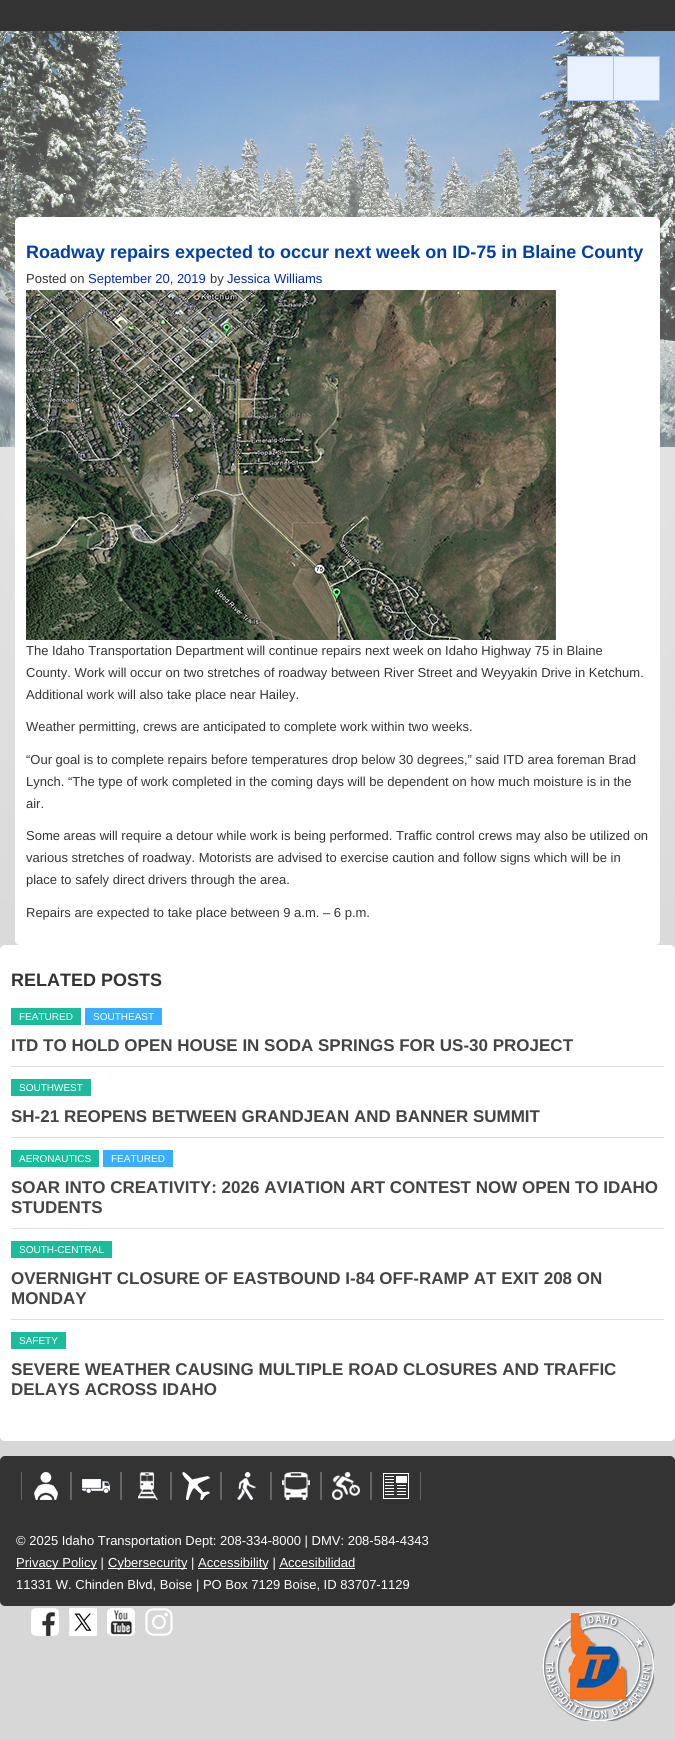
import math
import cairo

surface = cairo.ImageSurface(cairo.FORMAT_RGB24, 675, 1740)
c = cairo.Context(surface)
options = cairo.FontOptions()
options.set_hint_metrics(cairo.HINT_METRICS_OFF)
options.set_hint_style(cairo.HINT_STYLE_NONE)
c.set_font_options(options)
c.set_miter_limit(4)
def C(code):
 c.set_source_rgb(*(v / 255 for v in bytes.fromhex(code[-6:])))
def F(family, size, italic, bold):
 c.select_font_face(family, cairo.FONT_SLANT_ITALIC if italic else cairo.FONT_SLANT_NORMAL, cairo.FONT_WEIGHT_BOLD if bold else cairo.FONT_WEIGHT_NORMAL)
 c.set_font_size(size)
def T(x, y, s):
 c.move_to(x, y)
 c.show_text(s)
def R(x, y, w, h):
 c.rectangle(x, y, w, h)
 c.fill()
def Q(x, y, w, h, r):
 c.new_sub_path()
 for i, (u, v) in enumerate([(x + w - r, y + h - r), (x + r, y + h - r), (x + r, y + r), (x + w - r, y + r)]):
  c.arc(u, v, r, i * math.pi / 2, (i + 1) * math.pi / 2)
 c.close_path()
def I(path, x, y, w, h):
 c.save()
 c.set_source_surface(cairo.ImageSurface.create_from_png(path), x, y)
 c.rectangle(x, y, w, h)
 c.fill()
 c.restore()
C('d7d7d7')
c.paint()
I('1.png',0,31,675,416)
C('333333')
R(0,0,675,31)
gradient = cairo.RadialGradient(338,350,0,338,350,1202)
gradient.add_color_stop_rgba(0,1,1,1,.5)
gradient.add_color_stop_rgba(.65,1,1,1,0)
c.set_source(gradient)
R(0,31,675,919)
C('e9f1fe')
c.rectangle(567.5,56.5,46,44)
c.fill_preserve()
C('acc3f9')
c.set_line_width(1)
c.stroke()
C('e9f1fe')
c.rectangle(613.5,56.5,46,44)
c.fill_preserve()
C('acc3f9')
c.stroke()
C('ffffff')
Q(15.5,217.5,644,727,4.5)
c.fill_preserve()
c.stroke()
F('Liberation Sans',18,0,1)
C('0040ac')
T(26,258,'Roadway repairs expected to occur next week on ID-75 in Blaine County')
F('Liberation Sans',13,0,0)
C('333333')
T(26,283,'Posted on')
C('0027c1')
T(88,283,'September 20, 2019')
C('333333')
T(210,283,'by')
C('0027c1')
T(227,283,'Jessica Williams')
I('2.png',26,290,530,350)
C('333333')
T(26,655,'The Idaho Transportation Department will continue repairs next week on Idaho Highway 75 in Blaine')
T(26,677,'County. Work will occur on two stretches of roadway between River Street and Weyyakin Drive in Ketchum.')
T(26,699,'Additional work will also take place near Hailey.')
T(26,731,'Weather permitting, crews are anticipated to complete work within two weeks.')
T(26,764,'“Our goal is to complete repairs before temperatures drop below 30 degrees,” said ITD area foreman Brad')
T(26,786,'Lynch. “The type of work completed in the coming days will be dependent on how much moisture is in the')
T(26,808,'air.')
T(26,840,'Some areas will require a detour while work is being performed. Traffic control crews may also be utilized on')
T(26,862,'various stretches of roadway. Motorists are advised to exercise caution and follow signs which will be in')
T(26,884,'place to safely direct drivers through the area.')
T(26,917,'Repairs are expected to take place between 9 a.m. – 6 p.m.')
C('ffffff')
Q(.5,945.5,674,495,4.5)
c.fill_preserve()
c.stroke()
F('Liberation Sans',18,0,1)
C('333333')
T(11,986,'RELATED POSTS')
C('dddddd')
R(11,1066,653,1)
C('1abc9c')
R(11,1008,70,17)
F('Liberation Sans',10,0,0)
C('ffffff')
T(19,1020,'FEATURED')
C('3aadff')
R(85,1008,77,17)
C('ffffff')
T(93,1020,'SOUTHEAST')
F('Liberation Sans',17,0,1)
C('444444')
T(11,1051,'ITD TO HOLD OPEN HOUSE IN SODA SPRINGS FOR US-30 PROJECT')
C('dddddd')
R(11,1137,653,1)
C('1abc9c')
R(11,1079,80,17)
F('Liberation Sans',10,0,0)
C('ffffff')
T(19,1091,'SOUTHWEST')
F('Liberation Sans',17,0,1)
C('444444')
T(11,1122,'SH-21 REOPENS BETWEEN GRANDJEAN AND BANNER SUMMIT')
C('dddddd')
R(11,1228,653,1)
C('1abc9c')
R(11,1150,88,17)
F('Liberation Sans',10,0,0)
C('ffffff')
T(19,1162,'AERONAUTICS')
C('3aadff')
R(103,1150,70,17)
C('ffffff')
T(111,1162,'FEATURED')
F('Liberation Sans',17,0,1)
C('444444')
T(11,1193,'SOAR INTO CREATIVITY: 2026 AVIATION ART CONTEST NOW OPEN TO IDAHO')
T(11,1213,'STUDENTS')
C('dddddd')
R(11,1319,653,1)
C('1abc9c')
R(11,1241,101,17)
F('Liberation Sans',10,0,0)
C('ffffff')
T(19,1253,'SOUTH-CENTRAL')
F('Liberation Sans',17,0,1)
C('444444')
T(11,1284,'OVERNIGHT CLOSURE OF EASTBOUND I-84 OFF-RAMP AT EXIT 208 ON')
T(11,1304,'MONDAY')
C('1abc9c')
R(11,1332,55,17)
F('Liberation Sans',10,0,0)
C('ffffff')
T(19,1344,'SAFETY')
F('Liberation Sans',17,0,1)
C('444444')
T(11,1375,'SEVERE WEATHER CAUSING MULTIPLE ROAD CLOSURES AND TRAFFIC')
T(11,1395,'DELAYS ACROSS IDAHO')
C('333333')
Q(.5,1456.5,674,149,4.5)
c.fill_preserve()
c.stroke()
C('666666')
R(70,1472,2,28)
R(21,1472,1,28)
I('3.png',34,1472,24,28)
R(120,1472,2,28)
I('4.png',82,1479,28,14)
R(170,1472,2,28)
I('5.png',138,1472,22,28)
R(220,1472,2,28)
I('6.png',182,1472,28,28)
R(270,1472,2,28)
I('7.png',237,1472,19,28)
R(320,1472,2,28)
I('8.png',282,1472,28,28)
R(370,1472,2,28)
I('9.png',332,1472,28,28)
R(420,1472,1,28)
I('10.png',383,1473,26,26)
F('Liberation Sans',13,0,0)
C('ffffff')
T(16,1545,'© 2025 Idaho Transportation Dept: 208-334-8000 | DMV: 208-584-4343')
R(16,1568,81,1)
T(16,1567,'Privacy Policy |')
R(108,1568,79,1)
T(108,1567,'Cybersecurity |')
R(198,1568,70,1)
T(198,1567,'Accessibility | Accesibilidad')
R(279,1568,76,1)
T(16,1589,'11331 W. Chinden Blvd, Boise | PO Box 7129 Boise, ID 83707-1129')
I('11.png',31,1608,28,28)
I('12.png',69,1608,28,28)
I('13.png',107,1608,28,28)
I('14.png',145,1608,28,28)
I('15.png',542,1611,112,110)
surface.write_to_png('o.png')
